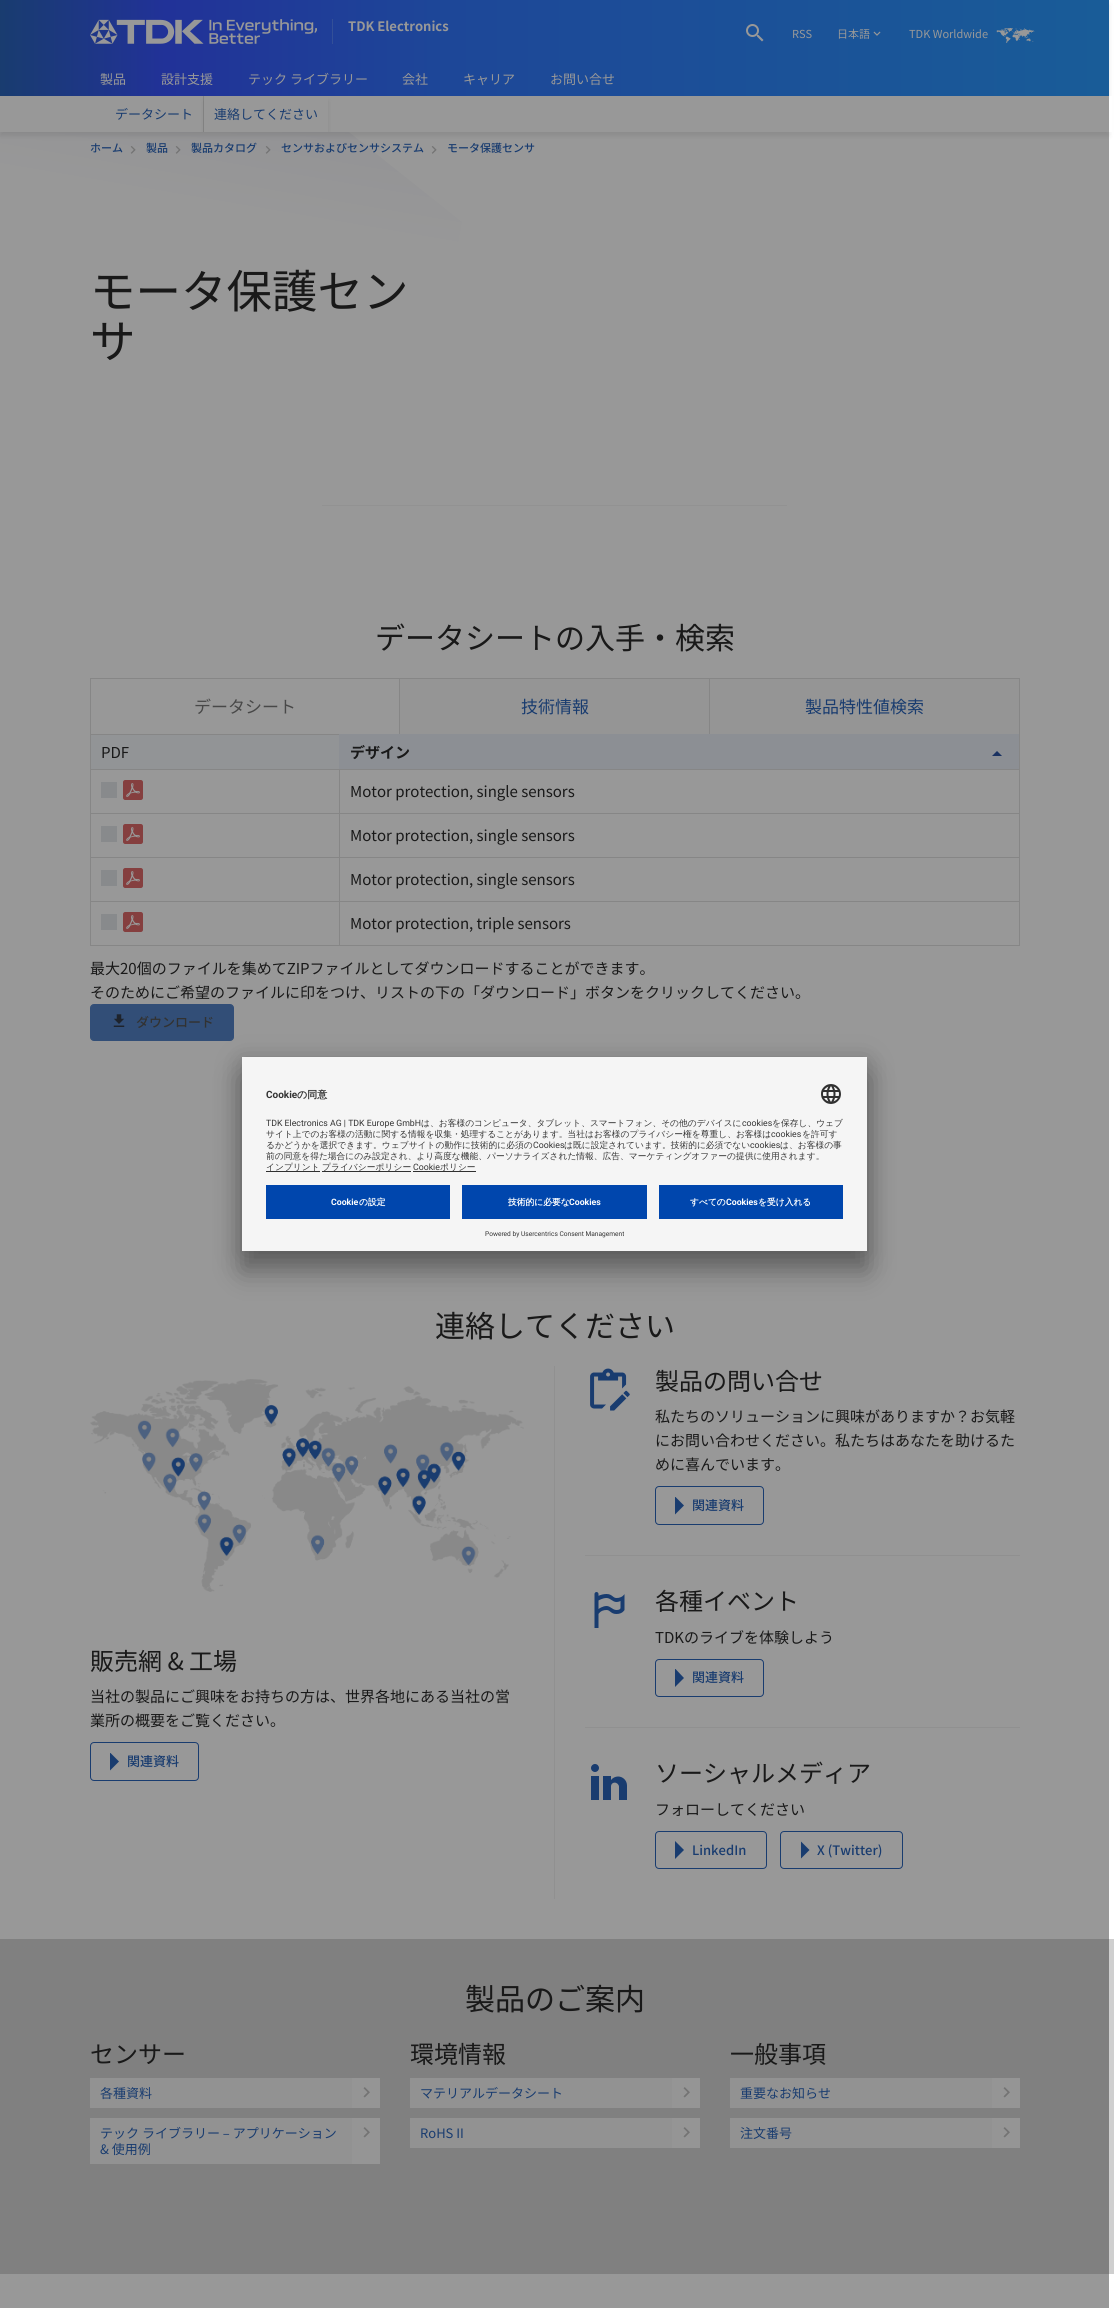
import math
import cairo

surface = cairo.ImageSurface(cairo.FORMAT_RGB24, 1119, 2308)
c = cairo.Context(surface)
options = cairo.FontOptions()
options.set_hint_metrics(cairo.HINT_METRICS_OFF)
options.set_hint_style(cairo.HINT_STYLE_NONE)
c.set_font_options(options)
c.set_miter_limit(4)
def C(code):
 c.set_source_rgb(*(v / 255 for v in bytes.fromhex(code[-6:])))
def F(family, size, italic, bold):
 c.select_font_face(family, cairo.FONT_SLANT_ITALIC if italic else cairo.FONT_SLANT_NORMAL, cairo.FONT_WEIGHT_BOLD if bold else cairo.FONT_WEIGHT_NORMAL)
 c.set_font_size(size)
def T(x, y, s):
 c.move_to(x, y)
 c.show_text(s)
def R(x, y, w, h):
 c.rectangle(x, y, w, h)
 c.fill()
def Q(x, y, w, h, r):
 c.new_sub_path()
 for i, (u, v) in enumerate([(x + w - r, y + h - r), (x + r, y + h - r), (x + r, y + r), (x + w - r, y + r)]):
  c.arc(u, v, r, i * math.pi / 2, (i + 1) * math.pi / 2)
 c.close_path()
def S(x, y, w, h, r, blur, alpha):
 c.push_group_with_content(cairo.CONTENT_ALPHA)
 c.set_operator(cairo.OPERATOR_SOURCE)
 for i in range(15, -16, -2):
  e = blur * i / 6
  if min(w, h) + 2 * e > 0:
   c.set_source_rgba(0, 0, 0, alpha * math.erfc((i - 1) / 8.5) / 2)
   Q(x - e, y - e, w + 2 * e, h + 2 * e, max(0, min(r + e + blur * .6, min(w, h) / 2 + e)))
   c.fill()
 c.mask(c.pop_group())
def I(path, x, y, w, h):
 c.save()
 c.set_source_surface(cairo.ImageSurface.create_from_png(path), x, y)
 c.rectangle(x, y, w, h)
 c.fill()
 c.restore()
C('ffffff')
c.paint()
gradient = cairo.LinearGradient(101,292,155,-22)
gradient.add_color_stop_rgba(.3,1,1,1,1)
gradient.add_color_stop_rgba(1,0.91,0.91,0.949,1)
c.set_source(gradient)
c.new_path()
c.move_to(-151,-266)
c.line_to(462,222)
c.line_to(407,536)
c.line_to(-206,48)
c.close_path()
c.fill()
C('000000')
S(0,5,1109,131,0,2.5,.1)
gradient = cairo.LinearGradient(0,66,1109,65)
gradient.add_color_stop_rgba(0,0,0.275,0.678,1)
gradient.add_color_stop_rgba(.15,0.067,0.196,1,1)
gradient.add_color_stop_rgba(.4,0.035,0.361,1,1)
gradient.add_color_stop_rgba(1,0,0.529,1,1)
c.set_source(gradient)
R(0,0,1109,96)
I('1.png',90,19,227,25)
C('356eff')
R(332,19,1,25)
F('Noto Sans JP',13,0,1)
C('ffffff')
T(348,31,'TDK Electronics')
I('2.png',746,24,18,18)
F('Noto Sans JP',11,0,0)
T(792,38,'RSS')
T(837,38,'日本語')
I('3.png',873,31,8,5)
T(909,38,'TDK Worldwide')
I('4.png',996,28,39,15)
F('Noto Sans JP',13,0,0)
T(100,84,'製品')
T(161,84,'設計支援')
T(248,84,'テック ライブラリー')
T(402,84,'会社')
T(463,84,'キャリア')
T(550,84,'お問い合せ')
R(0,96,1112,36)
C('0046ad')
T(115,119,'データシート')
C('dadada')
R(203,96,1,36)
c.save()
c.rectangle(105,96,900,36)
c.clip()
c.set_fill_rule(cairo.FILL_RULE_EVEN_ODD)
c.new_path()
c.move_to(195,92)
c.line_to(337,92)
c.line_to(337,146)
c.line_to(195,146)
c.close_path()
c.move_to(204,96)
c.line_to(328,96)
c.line_to(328,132)
c.line_to(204,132)
c.close_path()
c.clip()
C('000000')
S(204,101,124,36,0,2.5,.1)
c.restore()
C('0046ad')
T(214,119,'連絡してください')
F('Noto Sans JP Medium',11,0,0)
T(90,152,'ホーム')
I('5.png',130,146,6,8)
T(146,152,'製品')
I('6.png',175,146,6,8)
T(191,152,'製品カタログ')
I('7.png',265,146,6,8)
T(281,152,'センサおよびセンサシステム')
I('8.png',431,146,6,8)
T(447,152,'モータ保護センサ')
F('Noto Sans JP',45.5,0,0)
C('000000')
T(90,308,'モータ保護セン')
T(90,358,'サ')
C('f3f3f3')
R(322,505,465,1)
F('Noto Sans JP',30,0,0)
C('000000')
T(375,649,'データシートの入手・検索')
C('f9f9f9')
R(400,679,619,55)
c.rectangle(90.5,678.5,929,56)
C('dadada')
c.set_line_width(1)
c.stroke()
R(399,679,1,55)
F('Noto Sans JP',17,0,0)
C('5f5f5f')
T(194,713,'データシート')
C('dadada')
R(709,679,1,55)
C('0046ad')
T(521,713,'技術情報')
T(805,713,'製品特性値検索')
C('f2f6fb')
R(91,735,248,34)
F('Noto Sans JP',15,0,0)
C('000000')
T(101,758,'PDF')
C('e6edf7')
R(339,734,680,35)
F('Noto Sans JP',15,0,1)
C('000000')
T(350,758,'デザイン')
C('003191')
c.new_path()
c.move_to(992,756)
c.line_to(997,751)
c.line_to(1002,756)
c.close_path()
c.fill()
C('dadada')
R(339,769,681,1)
R(339,813,681,1)
R(339,857,681,1)
R(339,901,681,1)
R(1019,901,1,45)
R(339,945,681,1)
R(339,901,1,45)
R(90,901,250,1)
R(339,857,1,45)
R(90,857,250,1)
R(339,813,1,45)
R(90,813,250,1)
R(339,769,1,45)
R(90,769,250,1)
R(90,945,250,1)
R(90,901,1,45)
R(90,857,1,45)
R(90,813,1,45)
R(90,734,1,80)
C('dee2e6')
R(101,782,16,16)
I('9.png',123,780,20,20)
C('dadada')
R(1019,857,1,45)
R(1019,813,1,45)
R(1019,734,1,80)
F('Noto Sans JP',15,0,0)
C('000000')
T(350,797,'Motor protection, single sensors')
C('dee2e6')
R(101,826,16,16)
I('9.png',123,824,20,20)
C('000000')
T(350,841,'Motor protection, single sensors')
C('dee2e6')
R(101,870,16,16)
I('9.png',123,868,20,20)
C('000000')
T(350,885,'Motor protection, single sensors')
C('dee2e6')
R(101,914,16,16)
I('9.png',123,912,20,20)
C('000000')
T(350,929,'Motor protection, triple sensors')
T(90,974,'最大20個のファイルを集めてZIPファイルとしてダウンロードすることができます。')
T(90,998,'そのためにご希望のファイルに印をつけ、リストの下の「ダウンロード」ボタンをクリックしてください。')
C('336bbd')
Q(90.5,1004.5,143,36,3.5)
c.fill_preserve()
c.stroke()
I('10.png',113,1014,12,13)
F('Noto Sans JP Medium',13,0,0)
C('333333')
T(136,1027,'ダウンロード')
F('Noto Sans JP',30,0,0)
C('000000')
T(435,1337,'連絡してください')
C('efefef')
R(554,1366,1,533)
I('11.png',90,1379,434,213)
F('Noto Sans JP',24,0,0)
C('000000')
T(90,1670,'販売網 & 工場')
F('Noto Sans JP',15,0,0)
T(90,1702,'当社の製品にご興味をお持ちの方は、世界各地にある当社の営')
T(90,1726,'業所の概要をご覧ください。')
Q(90.5,1742.5,108,38,3.5)
C('0046ad')
c.stroke()
c.new_path()
c.move_to(110,1753)
c.line_to(110,1770.5)
c.line_to(119,1761.5)
c.line_to(110.5,1753)
c.close_path()
c.fill()
F('Noto Sans JP Medium',13,0,0)
T(127,1766,'関連資料')
C('efefef')
R(585,1555,435,1)
I('12.png',590,1368,40,43)
F('Noto Sans JP',24,0,0)
C('000000')
T(655,1390,'製品の問い合せ')
F('Noto Sans JP',15,0,0)
T(655,1422,'私たちのソリューションに興味がありますか？お気軽')
T(655,1446,'にお問い合わせください。私たちはあなたを助けるた')
T(655,1470,'めに喜んでいます。')
Q(655.5,1486.5,108,38,3.5)
C('0046ad')
c.stroke()
c.new_path()
c.move_to(675,1497)
c.line_to(675,1514.5)
c.line_to(684,1505.5)
c.line_to(675.5,1497)
c.close_path()
c.fill()
F('Noto Sans JP Medium',13,0,0)
T(692,1510,'関連資料')
C('efefef')
R(585,1727,435,1)
I('13.png',594,1592,31,36)
F('Noto Sans JP',24,0,0)
C('000000')
T(655,1610,'各種イベント')
F('Noto Sans JP',15,0,0)
T(655,1643,'TDKのライブを体験しよう')
Q(655.5,1659.5,108,37,3.5)
C('0046ad')
c.stroke()
c.new_path()
c.move_to(675,1669)
c.line_to(675,1687)
c.line_to(684,1678)
c.line_to(675.5,1669)
c.close_path()
c.fill()
F('Noto Sans JP Medium',13,0,0)
T(692,1682,'関連資料')
I('14.png',591,1764,36,36)
F('Noto Sans JP',24,0,0)
C('000000')
T(655,1782,'ソーシャルメディア')
F('Noto Sans JP',15,0,0)
T(655,1815,'フォローしてください')
Q(655.5,1831.5,111,37,3.5)
C('0046ad')
c.stroke()
c.new_path()
c.move_to(675,1841)
c.line_to(675,1859)
c.line_to(684,1850)
c.close_path()
c.fill()
F('Noto Sans JP Medium',13,0,0)
T(692,1855,'LinkedIn')
Q(780.5,1831.5,122,37,3.5)
c.stroke()
c.new_path()
c.move_to(801,1841.5)
c.line_to(809.5,1850)
c.line_to(801,1858.5)
c.close_path()
c.fill()
T(817,1855,'X (Twitter)')
C('cfcfcf')
R(0,1939,1114,335)
F('Noto Sans JP',30,0,0)
C('000000')
T(465,2010,'製品のご案内')
F('Noto Sans JP',24,0,0)
T(90,2063,'センサー')
C('f9f9f9')
R(352,2078,28,30)
C('f3f3f3')
R(90,2078,262,30)
F('Noto Sans JP',13,0,0)
C('0046ad')
T(100,2098,'各種資料')
I('15.png',363,2087,7,11)
C('f9f9f9')
R(352,2118,28,46)
C('f3f3f3')
R(90,2118,262,46)
C('0046ad')
T(100,2138,'テック ライブラリー – アプリケーション')
T(100,2154,'& 使用例')
I('15.png',363,2127,7,11)
F('Noto Sans JP',24,0,0)
C('000000')
T(410,2063,'環境情報')
C('f9f9f9')
R(672,2078,28,30)
C('f3f3f3')
R(410,2078,262,30)
F('Noto Sans JP',13,0,0)
C('0046ad')
T(420,2098,'マテリアルデータシート')
I('15.png',683,2087,7,11)
C('f9f9f9')
R(672,2118,28,30)
C('f3f3f3')
R(410,2118,262,30)
C('0046ad')
T(420,2138,'RoHS II')
I('15.png',683,2127,7,11)
F('Noto Sans JP',24,0,0)
C('000000')
T(730,2063,'一般事項')
C('f9f9f9')
R(992,2078,28,30)
C('f3f3f3')
R(730,2078,262,30)
F('Noto Sans JP',13,0,0)
C('0046ad')
T(740,2098,'重要なお知らせ')
I('15.png',1003,2087,7,11)
C('f9f9f9')
R(992,2118,28,30)
C('f3f3f3')
R(730,2118,262,30)
C('0046ad')
T(740,2138,'注文番号')
I('15.png',1003,2127,7,11)
c.set_source_rgba(0.2,0.2,0.2,0.5)
R(0,0,1109,2308)
C('000000')
S(242,1077,625,194,0,14,.3)
S(242,1062,625,194,0,13,.22)
C('f5f5f5')
R(242,1057,625,194)
F('Roboto',10,0,1)
C('333333')
T(266,1098,'Cookie')
F('WenQuanYi Zen Hei',10,0,1)
T(297,1098,'の同意')
I('16.png',821,1084,20,20)
F('Roboto',8.75,0,0)
T(266,1126,'TDK Electronics AG | TDK Europe GmbH')
F('WenQuanYi Zen Hei Medium',8.75,0,0)
T(421,1126,'は、お客様のコンピュータ、タブレット、スマートフォン、その他のデバイスに')
F('Roboto',8.75,0,0)
T(742,1126,'cookies')
F('WenQuanYi Zen Hei Medium',8.75,0,0)
T(772,1126,'を保存し、ウェブ')
T(266,1137,'サイト上でのお客様の活動に関する情報を収集・処理することがあります。当社はお客様のプライバシー権を尊重し、お客様は')
F('Roboto',8.75,0,0)
T(771,1137,'cookies')
F('WenQuanYi Zen Hei Medium',8.75,0,0)
T(802,1137,'を許可す')
T(266,1148,'るかどうかを選択できます。ウェブサイトの動作に技術的に必須の')
F('Roboto',8.75,0,0)
T(533,1148,'Cookies')
F('WenQuanYi Zen Hei Medium',8.75,0,0)
T(564,1148,'は既に設定されています。技術的に必須でない')
F('Roboto',8.75,0,0)
T(750,1148,'cookies')
F('WenQuanYi Zen Hei Medium',8.75,0,0)
T(780,1148,'は、お客様の事')
T(266,1159,'前の同意を得た場合にのみ設定され、より高度な機能、パーソナライズされた情報、広告、マーケティングオファーの提供に使用されます。')
C('303030')
R(266,1171,54,1)
C('333333')
T(266,1170,'インプリント')
C('303030')
R(322,1171,89,1)
C('333333')
T(322,1170,'プライバシーポリシー')
F('Roboto',8.75,0,0)
T(413,1170,'Cookie')
C('303030')
R(413,1171,63,1)
F('WenQuanYi Zen Hei Medium',8.75,0,0)
C('333333')
T(440,1170,'ポリシー')
C('0046ad')
R(266,1185,184,34)
F('Roboto',8.75,0,1)
C('ffffff')
T(331,1205,'Cookie')
F('WenQuanYi Zen Hei',8.75,0,1)
T(359,1205,'の設定')
C('0046ad')
R(462,1185,185,34)
C('ffffff')
T(508,1205,'技術的に必要な')
F('Roboto',8.75,0,1)
T(569,1205,'Cookies')
C('0046ad')
R(659,1185,184,34)
F('WenQuanYi Zen Hei',8.75,0,1)
C('ffffff')
T(690,1205,'すべての')
F('Roboto',8.75,0,1)
T(726,1205,'Cookies')
F('WenQuanYi Zen Hei',8.75,0,1)
T(758,1205,'を受け入れる')
F('Roboto',6.6,0,0)
C('333333')
T(485,1236,'Powered by Usercentrics Consent Management')
surface.write_to_png('o.png')
